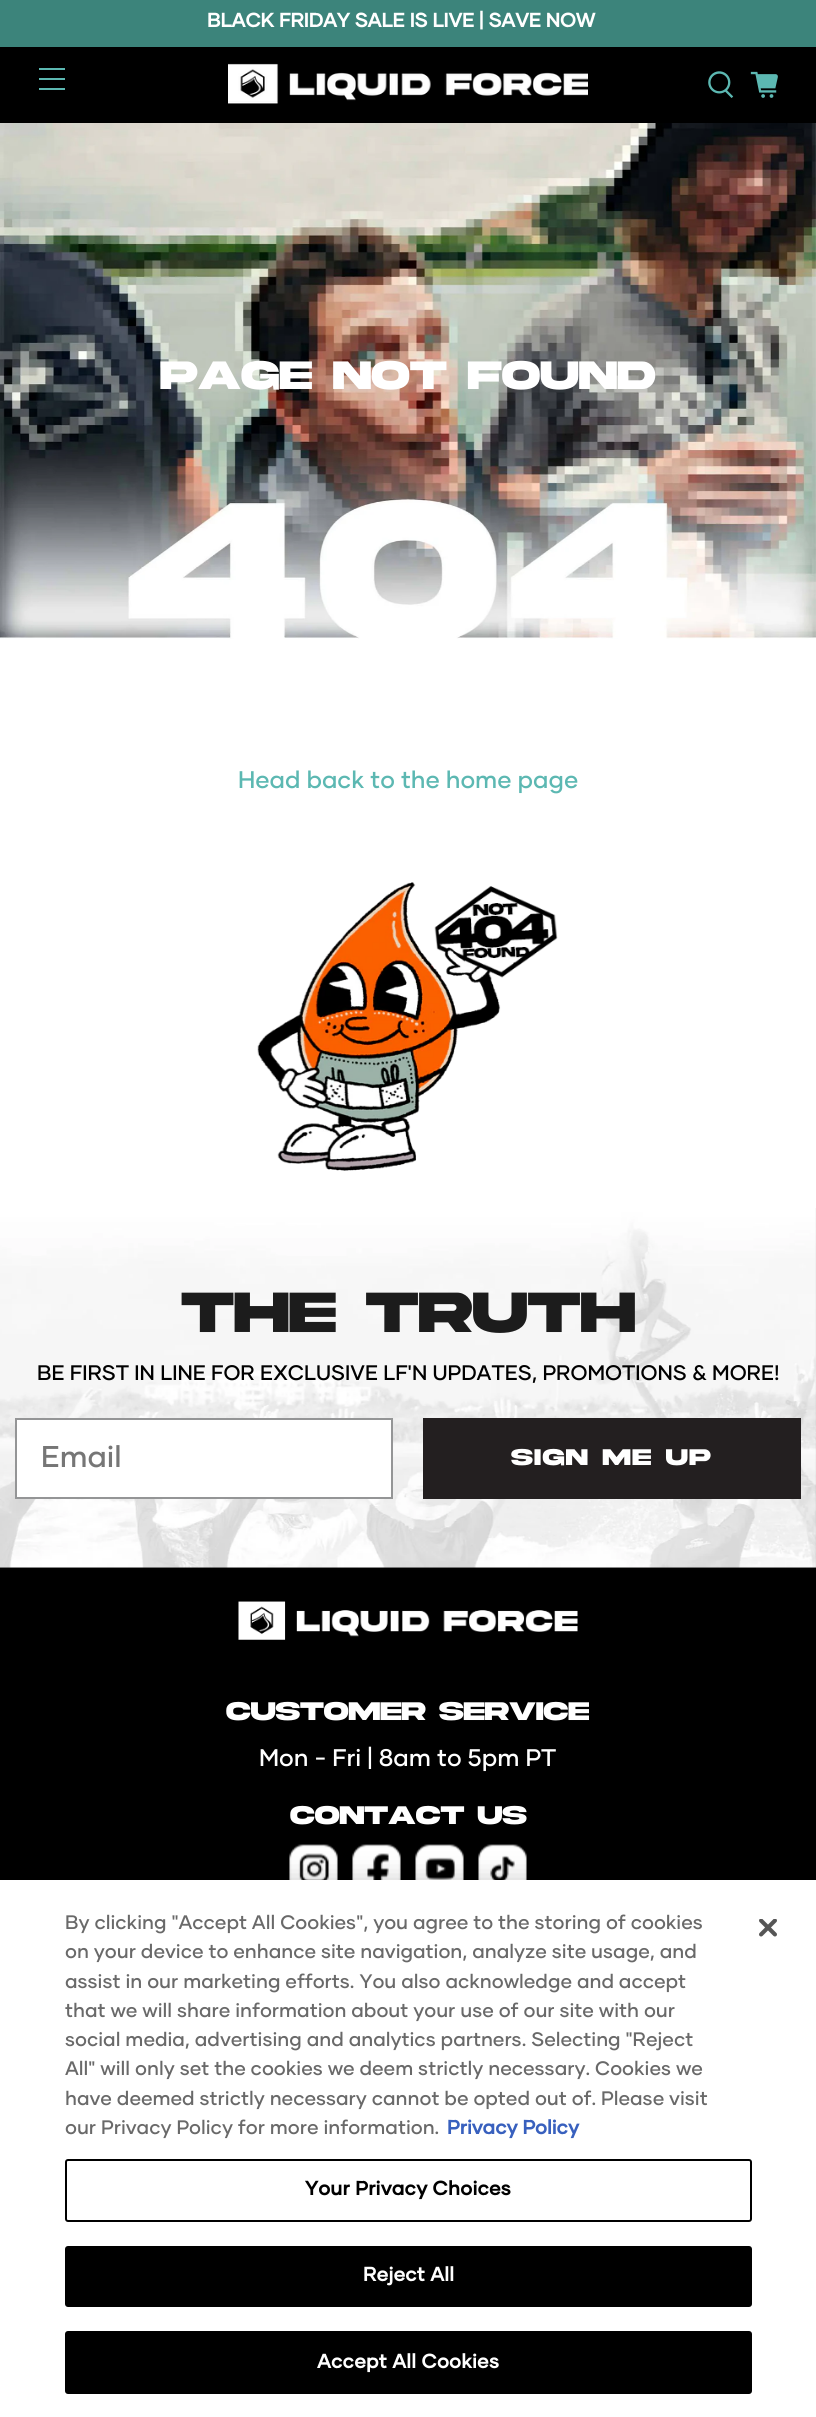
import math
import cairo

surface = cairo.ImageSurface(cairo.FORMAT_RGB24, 816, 2417)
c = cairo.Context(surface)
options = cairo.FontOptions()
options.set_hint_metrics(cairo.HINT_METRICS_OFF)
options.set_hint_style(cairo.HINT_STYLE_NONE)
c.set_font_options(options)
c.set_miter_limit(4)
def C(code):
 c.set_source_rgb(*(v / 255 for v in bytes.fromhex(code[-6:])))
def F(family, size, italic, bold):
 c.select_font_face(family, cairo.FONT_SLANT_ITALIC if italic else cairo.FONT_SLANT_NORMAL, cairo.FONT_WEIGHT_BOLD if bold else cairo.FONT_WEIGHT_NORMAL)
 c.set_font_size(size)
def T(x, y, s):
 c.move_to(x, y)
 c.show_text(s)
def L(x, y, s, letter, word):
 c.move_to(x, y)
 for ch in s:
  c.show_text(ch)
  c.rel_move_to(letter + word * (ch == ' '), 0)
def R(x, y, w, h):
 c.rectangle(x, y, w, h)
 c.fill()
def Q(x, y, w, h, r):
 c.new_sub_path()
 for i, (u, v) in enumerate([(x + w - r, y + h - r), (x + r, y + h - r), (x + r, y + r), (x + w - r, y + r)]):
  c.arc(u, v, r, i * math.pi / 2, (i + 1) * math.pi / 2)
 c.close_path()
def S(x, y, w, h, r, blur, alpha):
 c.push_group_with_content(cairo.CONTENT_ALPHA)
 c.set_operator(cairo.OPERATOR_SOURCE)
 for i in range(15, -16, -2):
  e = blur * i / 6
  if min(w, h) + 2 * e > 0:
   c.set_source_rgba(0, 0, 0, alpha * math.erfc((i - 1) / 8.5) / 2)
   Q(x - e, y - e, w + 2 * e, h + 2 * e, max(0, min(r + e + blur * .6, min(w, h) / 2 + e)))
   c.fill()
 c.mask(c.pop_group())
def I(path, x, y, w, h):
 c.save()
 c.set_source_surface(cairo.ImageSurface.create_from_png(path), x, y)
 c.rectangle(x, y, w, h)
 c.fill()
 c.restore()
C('ffffff')
c.paint()
C('3c847b')
R(0,0,816,47)
F('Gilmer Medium',19.5,0,1)
C('ffffff')
T(207,27,'BLACK FRIDAY SALE IS LIVE | SAVE NOW')
C('000000')
R(0,47,816,76)
C('5cb8b2')
R(39,68,26,2)
R(39,78,26,2)
R(39,88,26,2)
I('1.png',228,63,360,41)
I('2.png',708,71,26,27)
I('3.png',750,71,28,27)
I('4.png',0,123,816,516)
F('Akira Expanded',42,0,1)
C('ffffff')
T(160,389,'PAGE NOT FOUND')
F('Gilmer Medium Medium',24,0,0)
C('5cb8b2')
T(238,788,'Head back to the home page')
I('5.png',257,882,301,289)
C('111111')
R(0,1208,816,360)
I('6.png',0,1208,816,360)
F('Akira Expanded',60,0,1)
C('1c1c1c')
T(181,1332,'THE TRUTH')
F('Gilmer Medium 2 Medium',21,0,0)
C('000000')
T(37,1380,'BE FIRST IN LINE FOR EXCLUSIVE LF\'N UPDATES, PROMOTIONS & MORE!')
C('ffffff')
c.rectangle(16,1419,376,79)
c.fill_preserve()
C('949596')
c.stroke()
F('Gilmer Medium 2 Medium',30,0,0)
C('767676')
T(41,1467,'Email')
C('231f20')
R(423,1418,378,81)
F('Akira Expanded',24,0,1)
C('ffffff')
L(511,1465,'SIGN ME UP',1.5,0)
C('000000')
R(0,1568,816,312)
I('7.png',238,1601,340,39)
F('Akira Expanded',27,0,1)
C('ffffff')
T(226,1720,'CUSTOMER SERVICE')
F('Gilmer Medium Medium',24,0,0)
T(259,1766,'Mon - Fri | 8am to 5pm PT')
F('Akira Expanded',27,0,1)
T(290,1824,'CONTACT US')
I('8.png',289,1844,49,36)
I('9.png',352,1844,49,36)
I('10.png',415,1844,49,36)
I('11.png',478,1844,49,36)
C('000000')
S(0,1880,816,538,0,13.5,.2)
C('ffffff')
R(0,1880,816,537)
F('Gilmer Medium Medium',19.5,0,0)
C('696969')
T(65,1929,'By clicking "Accept All Cookies", you agree to the storing of cookies')
T(65,1958,'on your device to enhance site navigation, analyze site usage, and')
T(65,1988,'assist in our marketing efforts. You also acknowledge and accept')
T(65,2017,'that we will share information about your use of our site with our')
T(65,2046,'social media, advertising and analytics partners. Selecting "Reject')
T(65,2075,'All" will only set the cookies we deem strictly necessary. Cookies we')
T(65,2105,'have deemed strictly necessary cannot be opted out of. Please visit')
T(65,2134,'our Privacy Policy for more information.')
F('Gilmer Medium',19.5,0,1)
C('3860be')
T(447,2134,'Privacy Policy')
Q(66,2160,685,61,2)
C('000000')
c.stroke()
L(305,2195,'Your Privacy Choices',.25,0)
Q(66,2247,685,59,2)
c.fill_preserve()
c.stroke()
C('ffffff')
L(363,2281,'Reject All',.25,0)
C('000000')
Q(66,2332,685,61,2)
c.fill_preserve()
c.stroke()
C('ffffff')
L(317,2368,'Accept All Cookies',.25,0)
I('12.png',759,1919,18,18)
surface.write_to_png('o.png')
